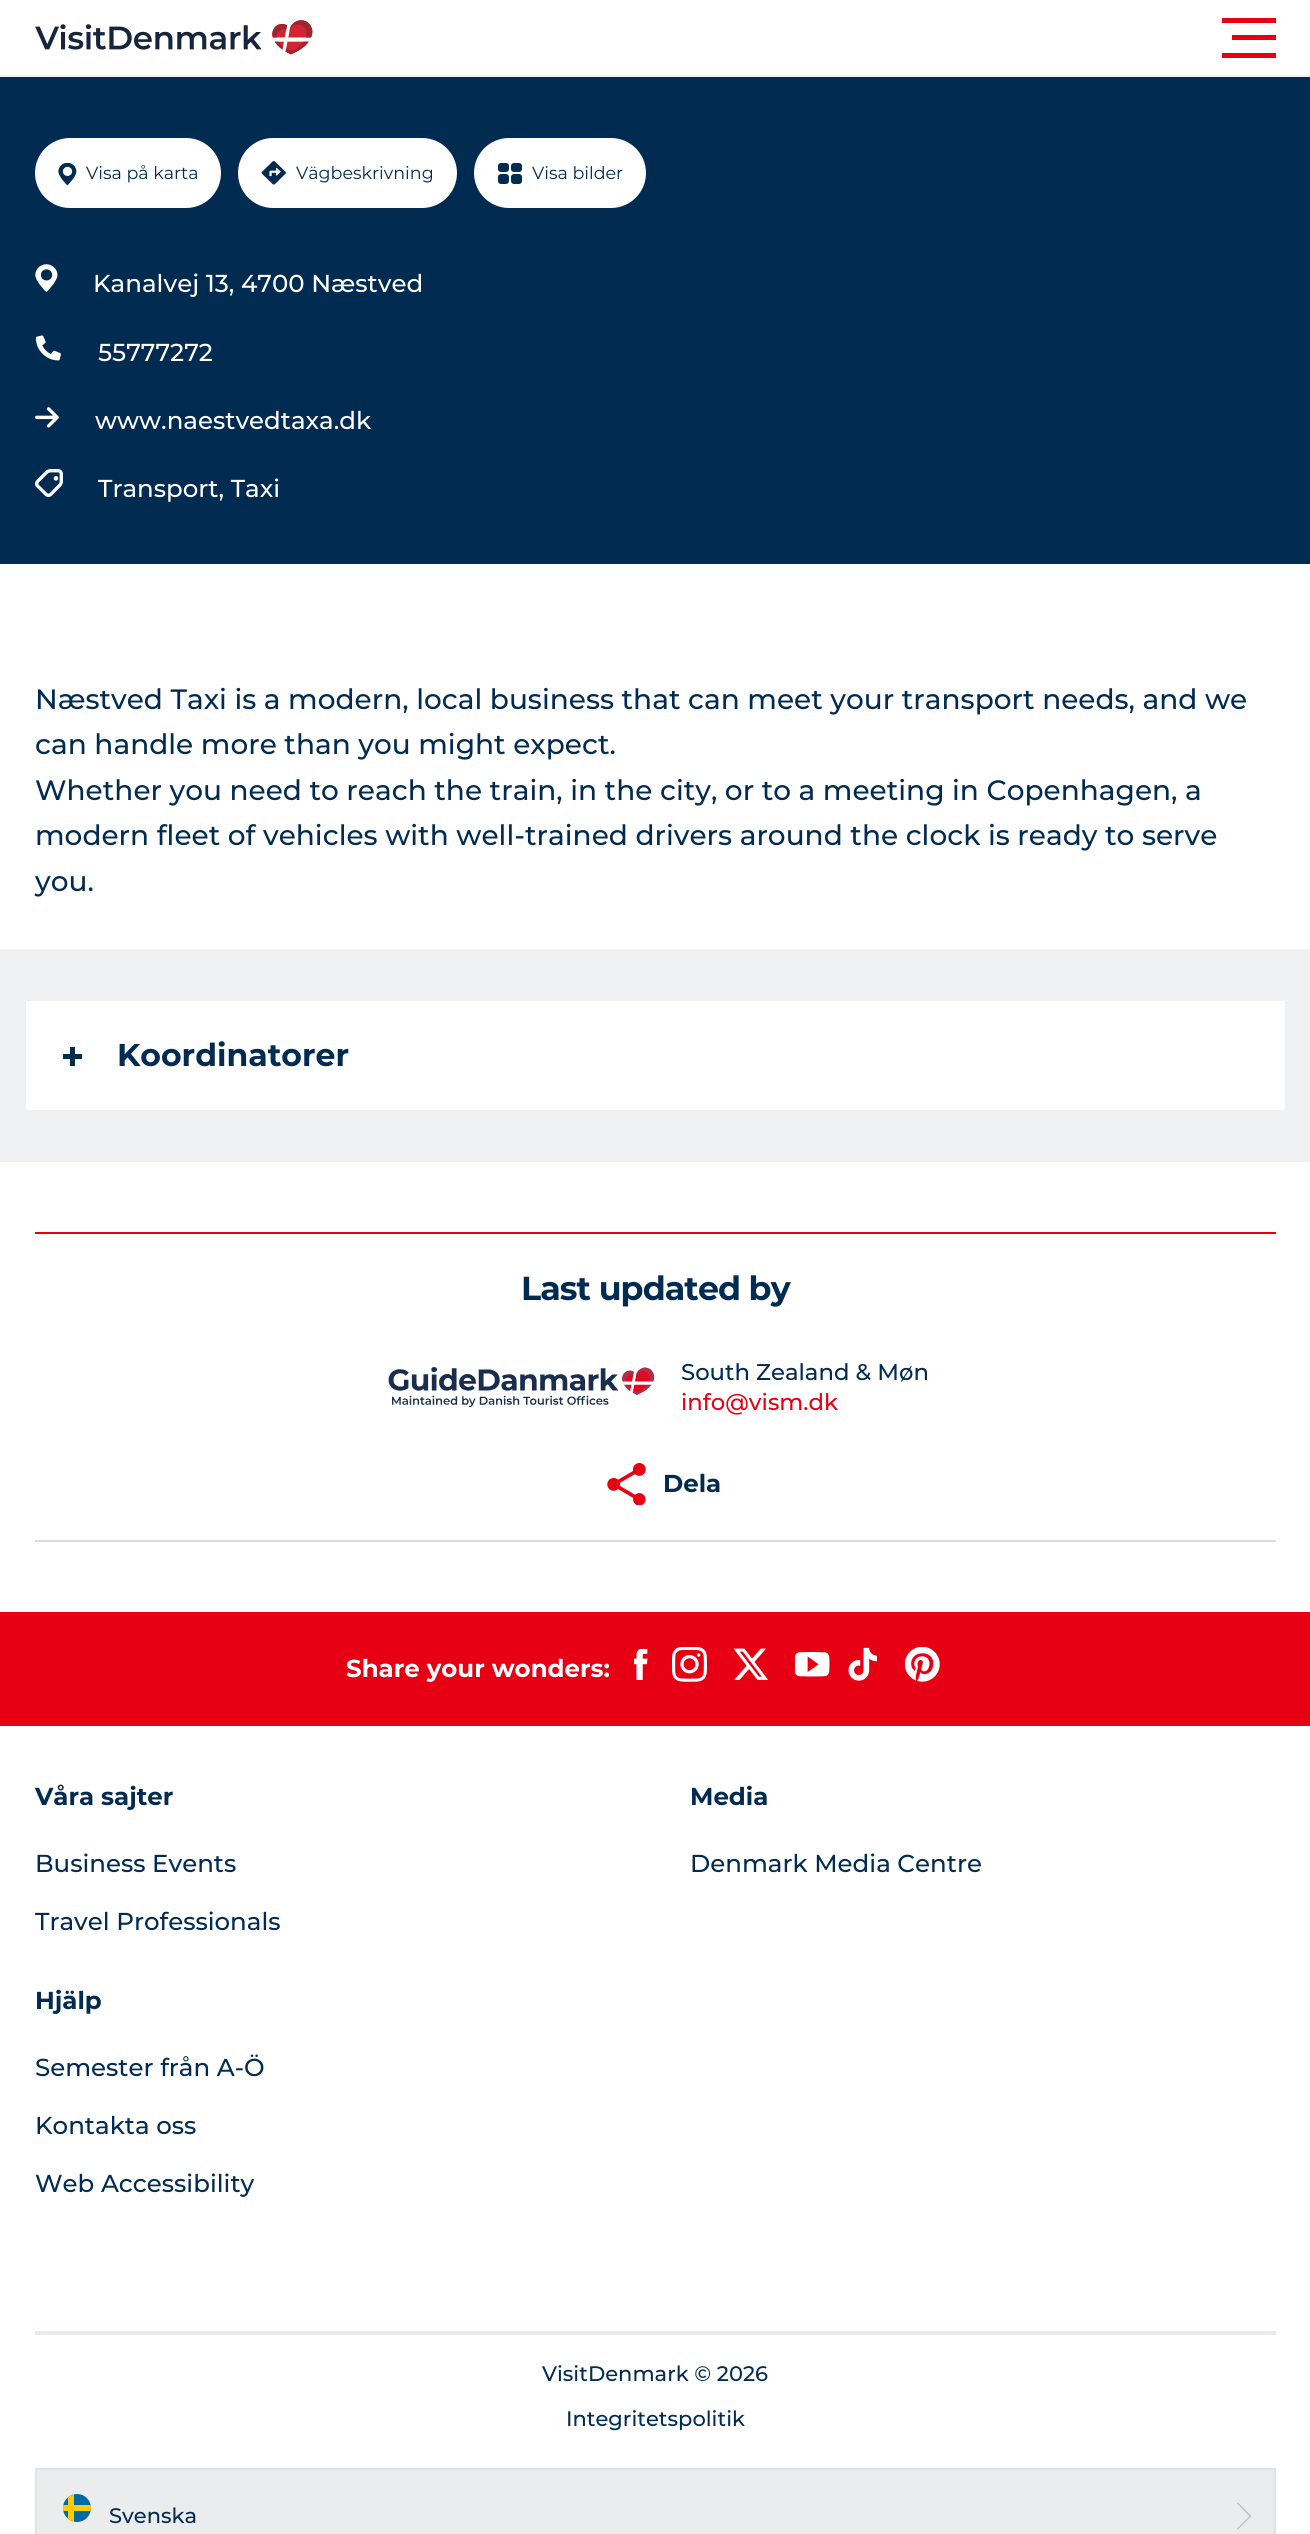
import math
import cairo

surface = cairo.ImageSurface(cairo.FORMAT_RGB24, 1310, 2534)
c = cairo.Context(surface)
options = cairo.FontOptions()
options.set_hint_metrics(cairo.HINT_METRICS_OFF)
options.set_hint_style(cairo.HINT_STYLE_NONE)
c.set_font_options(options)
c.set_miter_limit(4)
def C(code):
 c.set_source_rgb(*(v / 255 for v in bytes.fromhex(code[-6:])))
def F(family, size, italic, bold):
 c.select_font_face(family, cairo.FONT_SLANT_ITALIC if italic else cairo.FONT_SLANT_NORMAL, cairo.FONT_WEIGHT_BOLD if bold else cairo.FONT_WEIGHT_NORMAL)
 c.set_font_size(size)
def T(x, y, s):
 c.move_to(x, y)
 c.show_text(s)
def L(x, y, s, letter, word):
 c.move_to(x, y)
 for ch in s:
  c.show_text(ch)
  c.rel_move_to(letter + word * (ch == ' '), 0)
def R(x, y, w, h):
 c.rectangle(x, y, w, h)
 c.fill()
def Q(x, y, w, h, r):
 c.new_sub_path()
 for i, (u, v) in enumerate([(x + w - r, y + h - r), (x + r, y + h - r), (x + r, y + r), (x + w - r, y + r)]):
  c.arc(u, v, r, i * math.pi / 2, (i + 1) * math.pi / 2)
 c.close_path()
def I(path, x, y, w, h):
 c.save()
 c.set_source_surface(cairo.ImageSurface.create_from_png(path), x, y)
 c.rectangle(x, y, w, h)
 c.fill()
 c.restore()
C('ffffff')
c.paint()
C('f0f1f3')
R(0,75,1310,2)
I('1.png',35,20,278,35)
C('e70013')
R(1222,18,54,5)
R(1232,35,44,5)
R(1222,53,54,5)
C('022b52')
R(0,77,1310,487)
C('ffffff')
Q(35,138,186,70,35)
c.fill()
I('2.png',58,163,19,23)
F('Montserrat',17.5,0,0)
C('022b52')
T(86,179,'Visa på karta')
C('ffffff')
Q(238,138,219,70,35)
c.fill()
I('3.png',261,161,25,24)
C('022b52')
T(296,179,'Vägbeskrivning')
C('ffffff')
Q(474,138,172,70,35)
c.fill()
C('022b52')
Q(511,163,11,9,3)
c.fill()
Q(511,174,11,10,3)
c.fill()
Q(498,163,11,9,3)
c.fill()
Q(498,174,11,10,3)
c.fill()
T(532,179,'Visa bilder')
I('4.png',35,264,23,28)
F('Montserrat Medium',24.5,0,0)
C('ffffff')
T(93,292,'Kanalvej 13, 4700 Næstved')
I('5.png',35,335,26,26)
T(98,361,'55777272')
I('6.png',35,407,24,21)
T(95,429,'www.naestvedtaxa.dk')
I('7.png',35,469,28,28)
T(98,497,'Transport, Taxi')
F('Montserrat Medium',28,0,0)
C('022b52')
T(35,709,'Næstved Taxi is a modern, local business that can meet your transport needs, and we')
T(35,754,'can handle more than you might expect.')
T(35,800,'Whether you need to reach the train, in the city, or to a meeting in Copenhagen, a')
T(35,845,'modern fleet of vehicles with well-trained drivers around the clock is ready to serve')
T(35,891,'you.')
C('eff1f3')
R(0,949,1310,213)
C('ffffff')
R(26,1001,1259,109)
C('022b52')
R(63,1054,19,5)
R(70,1047,5,19)
F('Montserrat',31.5,0,1)
T(117,1066,'Koordinatorer')
C('e70013')
R(35,1232,1241,2)
C('dedcda')
R(35,1540,1241,2)
F('Montserrat',33.25,0,1)
C('022b52')
L(521,1300,'Last updated by',-.9,0)
I('8.png',388,1367,267,40)
F('Montserrat Medium',22.75,0,0)
T(681,1380,'South Zealand & Møn')
C('e70013')
T(681,1410,'info@vism.dk')
I('9.png',607,1463,39,42)
F('Montserrat',24.5,0,1)
C('022b52')
T(663,1492,'Dela')
C('e70013')
R(0,1612,1310,114)
C('ffffff')
T(346,1677,'Share your wonders:')
I('10.png',634,1649,14,31)
I('11.png',672,1647,35,35)
I('12.png',733,1648,35,32)
I('13.png',795,1652,35,25)
I('14.png',848,1647,29,34)
I('15.png',905,1647,35,35)
C('022b52')
T(35,1805,'Våra sajter')
F('Montserrat Medium',24.5,0,0)
T(35,1872,'Business Events')
T(35,1930,'Travel Professionals')
F('Montserrat',24.5,0,1)
T(690,1805,'Media')
F('Montserrat Medium',24.5,0,0)
T(690,1872,'Denmark Media Centre')
F('Montserrat',24.5,0,1)
T(35,2009,'Hjälp')
F('Montserrat Medium',24.5,0,0)
T(35,2076,'Semester från A-Ö')
T(35,2134,'Kontakta oss')
T(35,2192,'Web Accessibility')
C('e7eaec')
R(35,2331,1241,4)
F('Montserrat Medium',21,0,0)
C('022b52')
T(542,2381,'VisitDenmark © 2026')
T(566,2426,'Integritetspolitik')
C('eaecee')
c.rectangle(36,2469,1239,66)
c.fill_preserve()
C('e1e2e3')
c.stroke()
C('006aa7')
c.arc(77,2508,14,0,2 * math.pi)
c.fill()
c.save()
Q(63,2494,28,28,14)
c.clip()
C('fecc00')
R(68,2494,6,28)
R(63,2505,28,6)
c.restore()
C('022b52')
T(109,2523,'Svenska')
C('c1c4c7')
c.new_path()
c.move_to(1238,2502.5)
c.line_to(1251.5,2516)
c.line_to(1250.5,2517.5)
c.line_to(1237,2503.5)
c.close_path()
c.fill()
c.new_path()
c.move_to(1250.5,2515)
c.line_to(1251.5,2516)
c.line_to(1238,2529.5)
c.line_to(1237,2528.5)
c.close_path()
c.fill()
surface.write_to_png('o.png')
